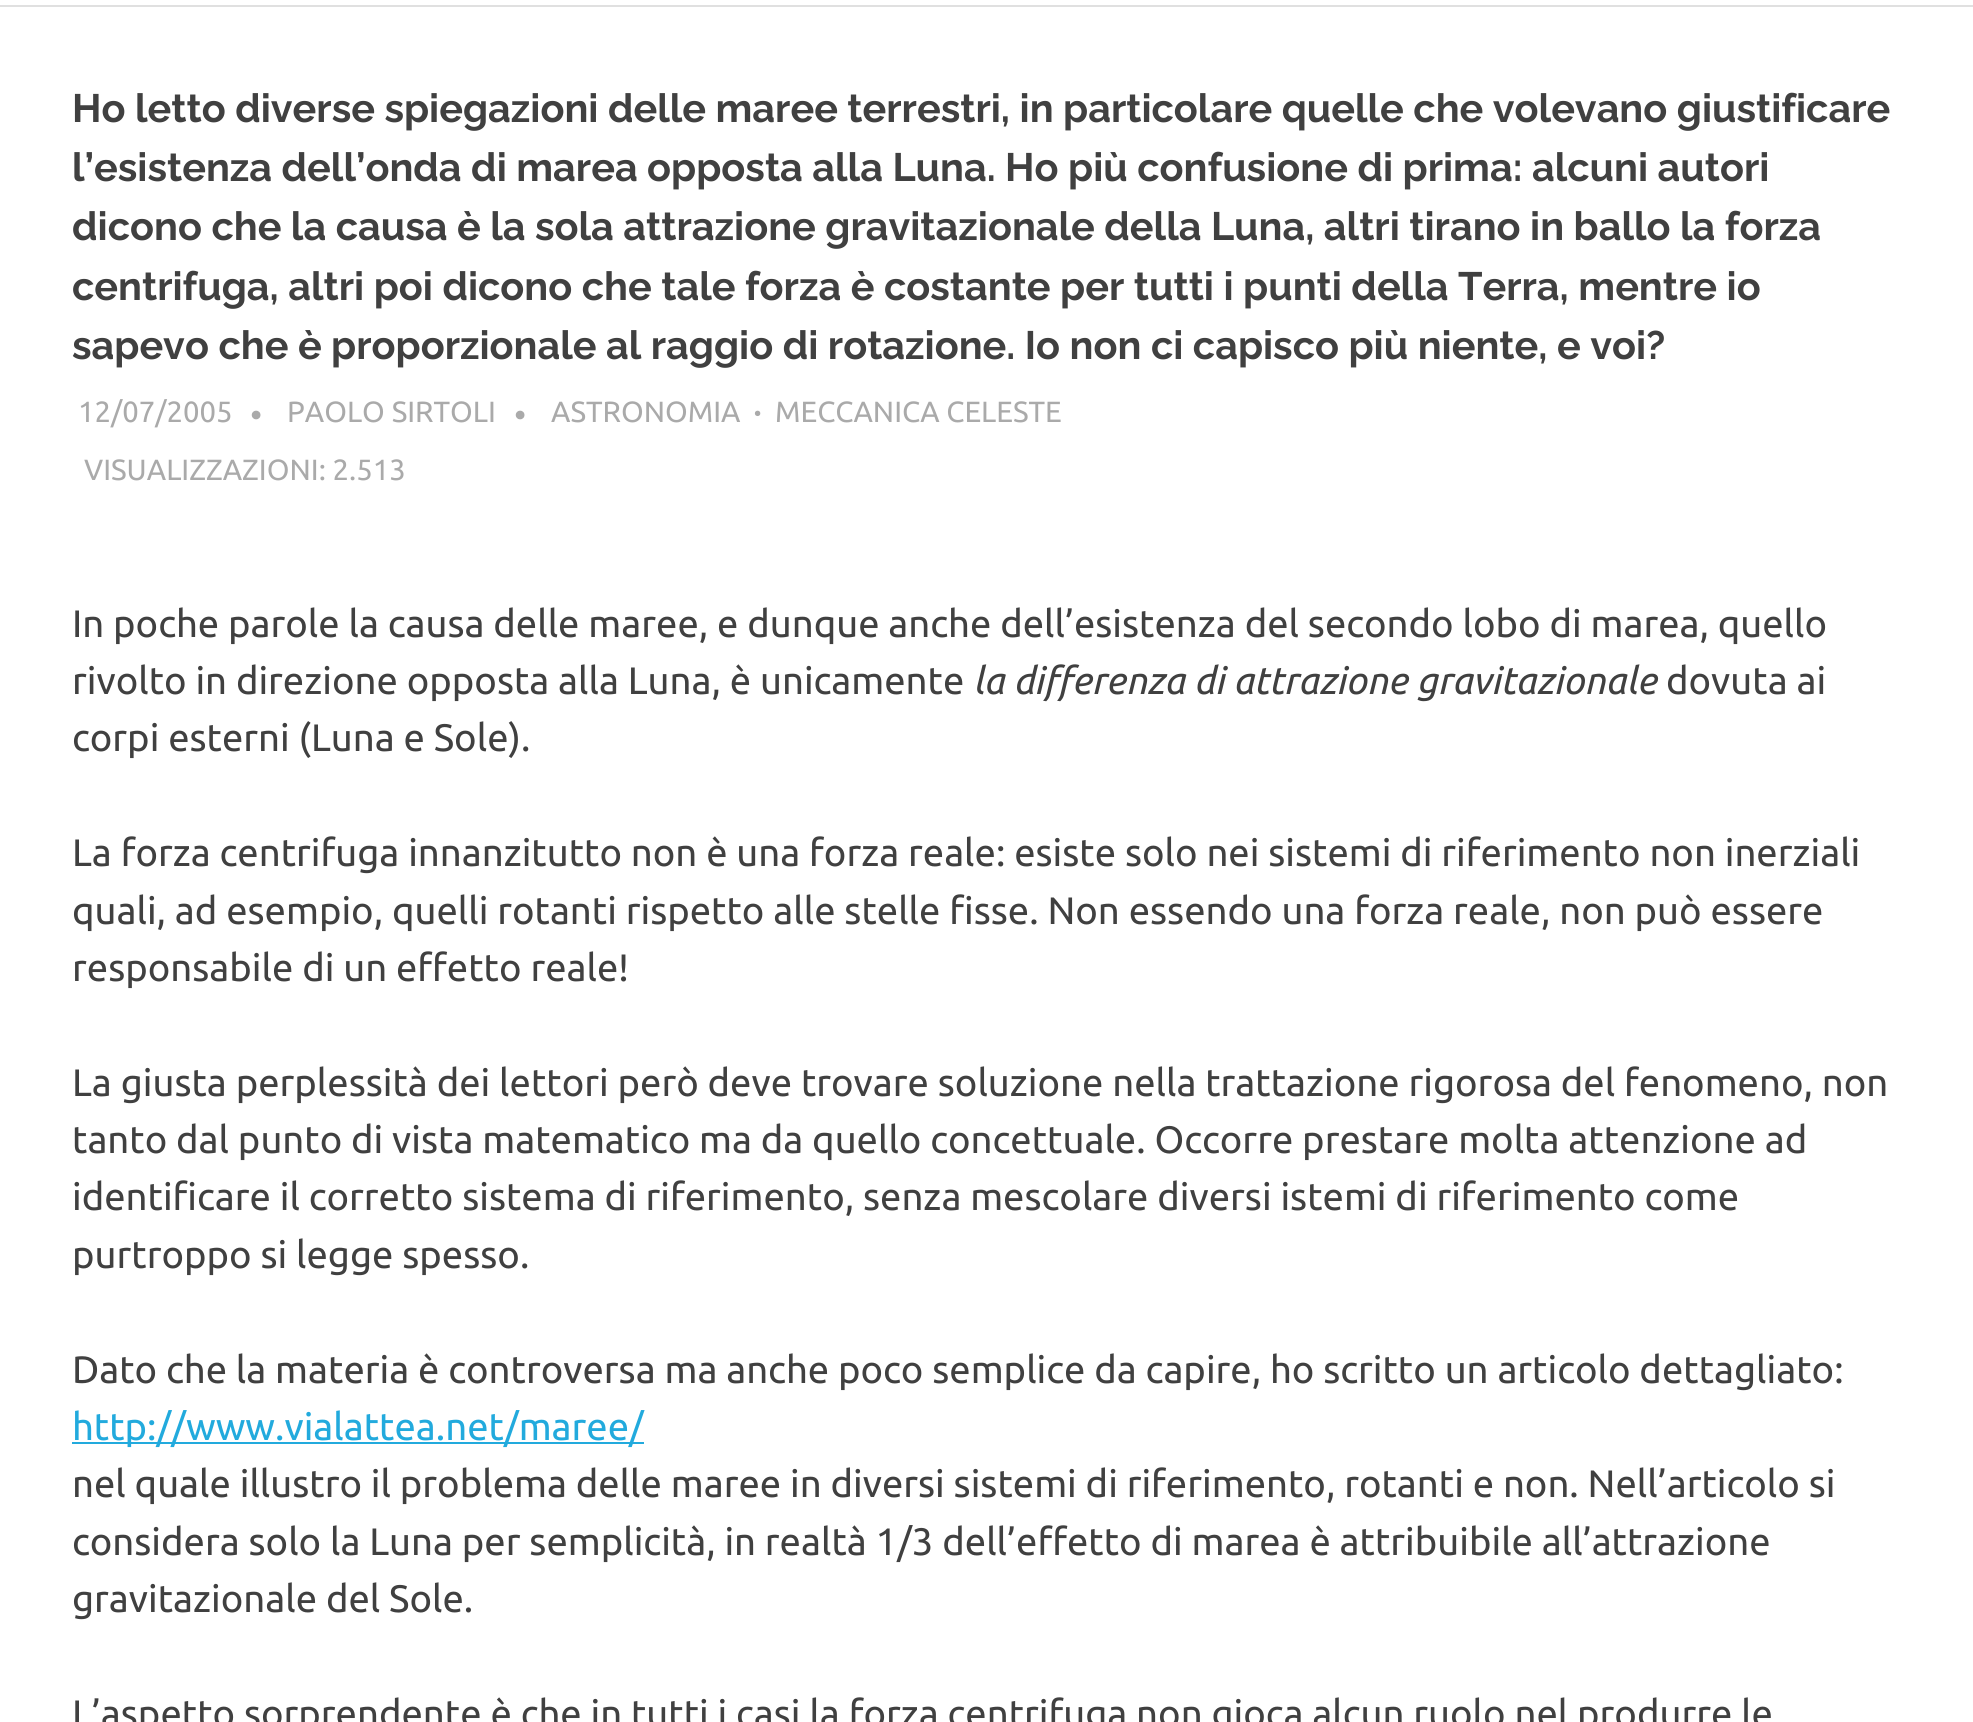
import math
import cairo

surface = cairo.ImageSurface(cairo.FORMAT_RGB24, 1973, 1722)
c = cairo.Context(surface)
options = cairo.FontOptions()
options.set_hint_metrics(cairo.HINT_METRICS_OFF)
options.set_hint_style(cairo.HINT_STYLE_NONE)
c.set_font_options(options)
c.set_miter_limit(4)
def C(code):
 c.set_source_rgb(*(v / 255 for v in bytes.fromhex(code[-6:])))
def F(family, size, italic, bold):
 c.select_font_face(family, cairo.FONT_SLANT_ITALIC if italic else cairo.FONT_SLANT_NORMAL, cairo.FONT_WEIGHT_BOLD if bold else cairo.FONT_WEIGHT_NORMAL)
 c.set_font_size(size)
def T(x, y, s):
 c.move_to(x, y)
 c.show_text(s)
def R(x, y, w, h):
 c.rectangle(x, y, w, h)
 c.fill()
C('ffffff')
c.paint()
C('e0e0e0')
R(0,5,1973,2)
F('Raleway',39.6,0,1)
C('404040')
T(72,122,'Ho letto diverse spiegazioni delle maree terrestri, in particolare quelle che volevano giustificare')
T(72,181,'l’esistenza dell’onda di marea opposta alla Luna. Ho più confusione di prima: alcuni autori')
T(72,240,'dicono che la causa è la sola attrazione gravitazionale della Luna, altri tirano in ballo la forza')
T(72,300,'centrifuga, altri poi dicono che tale forza è costante per tutti i punti della Terra, mentre io')
T(72,359,'sapevo che è proporzionale al raggio di rotazione. Io non ci capisco più niente, e voi?')
F('Ubuntu',29.25,0,0)
C('aaaaaa')
T(78,422,'12/07/2005')
F('Ubuntu',34,0,0)
T(250,427,'•')
F('Ubuntu',29.25,0,0)
T(551,422,'ASTRONOMIA')
F('Ubuntu',29.25,0,1)
T(754,422,'·')
F('Ubuntu',29.25,0,0)
T(775,422,'MECCANICA CELESTE')
T(84,480,'VISUALIZZAZIONI: 2.513')
T(287,422,'PAOLO SIRTOLI')
F('Ubuntu',34,0,0)
T(514,427,'•')
F('Ubuntu',38.25,0,0)
C('404040')
T(72,637,'In poche parole la causa delle maree, e dunque anche dell’esistenza del secondo lobo di marea, quello')
T(72,694,'rivolto in direzione opposta alla Luna, è unicamente')
F('Ubuntu',38.25,1,0)
T(973,694,'la differenza di attrazione gravitazionale')
F('Ubuntu',38.25,0,0)
T(1666,694,'dovuta ai')
T(72,751,'corpi esterni (Luna e Sole).')
T(72,866,'La forza centrifuga innanzitutto non è una forza reale: esiste solo nei sistemi di riferimento non inerziali')
T(72,924,'quali, ad esempio, quelli rotanti rispetto alle stelle fisse. Non essendo una forza reale, non può essere')
T(72,981,'responsabile di un effetto reale!')
T(72,1096,'La giusta perplessità dei lettori però deve trovare soluzione nella trattazione rigorosa del fenomeno, non')
T(72,1153,'tanto dal punto di vista matematico ma da quello concettuale. Occorre prestare molta attenzione ad')
T(72,1210,'identificare il corretto sistema di riferimento, senza mescolare diversi istemi di riferimento come')
T(72,1268,'purtroppo si legge spesso.')
T(72,1383,'Dato che la materia è controversa ma anche poco semplice da capire, ho scritto un articolo dettagliato:')
C('22aadd')
R(72,1442,572,2)
T(72,1440,'http://www.vialattea.net/maree/')
C('404040')
T(72,1497,'nel quale illustro il problema delle maree in diversi sistemi di riferimento, rotanti e non. Nell’articolo si')
T(72,1555,'considera solo la Luna per semplicità, in realtà 1/3 dell’effetto di marea è attribuibile all’attrazione')
T(72,1612,'gravitazionale del Sole.')
T(72,1727,'L’aspetto sorprendente è che in tutti i casi la forza centrifuga non gioca alcun ruolo nel produrre le')
surface.write_to_png('o.png')
